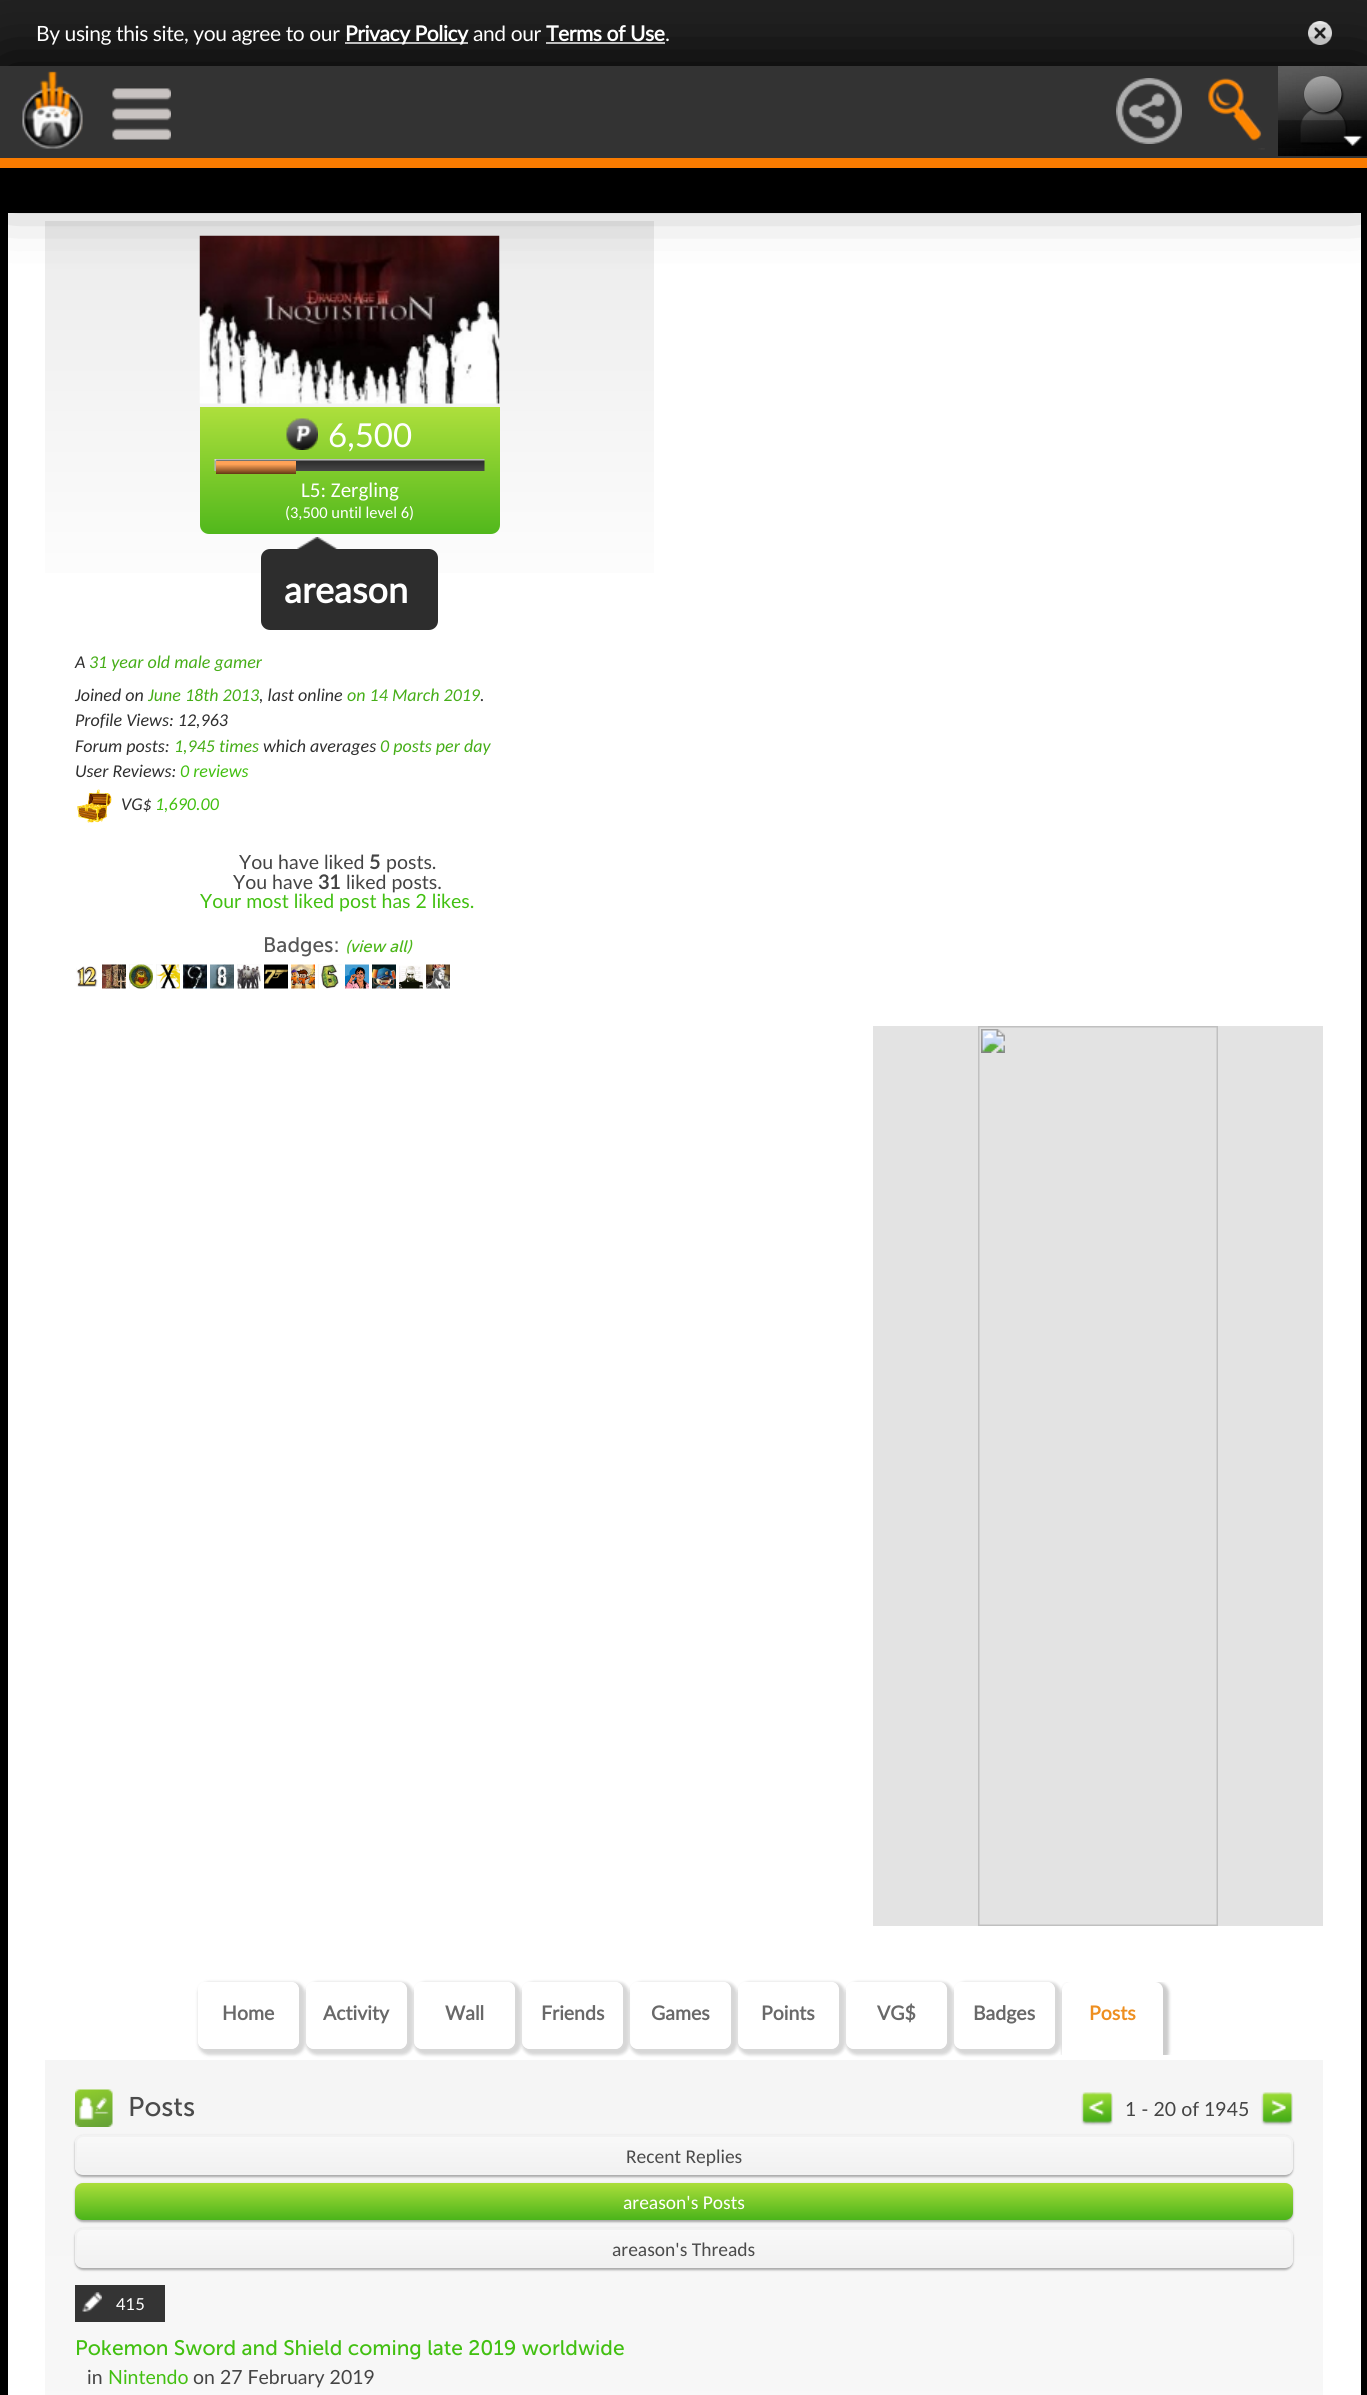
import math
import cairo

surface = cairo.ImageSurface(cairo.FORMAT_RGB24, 1367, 2395)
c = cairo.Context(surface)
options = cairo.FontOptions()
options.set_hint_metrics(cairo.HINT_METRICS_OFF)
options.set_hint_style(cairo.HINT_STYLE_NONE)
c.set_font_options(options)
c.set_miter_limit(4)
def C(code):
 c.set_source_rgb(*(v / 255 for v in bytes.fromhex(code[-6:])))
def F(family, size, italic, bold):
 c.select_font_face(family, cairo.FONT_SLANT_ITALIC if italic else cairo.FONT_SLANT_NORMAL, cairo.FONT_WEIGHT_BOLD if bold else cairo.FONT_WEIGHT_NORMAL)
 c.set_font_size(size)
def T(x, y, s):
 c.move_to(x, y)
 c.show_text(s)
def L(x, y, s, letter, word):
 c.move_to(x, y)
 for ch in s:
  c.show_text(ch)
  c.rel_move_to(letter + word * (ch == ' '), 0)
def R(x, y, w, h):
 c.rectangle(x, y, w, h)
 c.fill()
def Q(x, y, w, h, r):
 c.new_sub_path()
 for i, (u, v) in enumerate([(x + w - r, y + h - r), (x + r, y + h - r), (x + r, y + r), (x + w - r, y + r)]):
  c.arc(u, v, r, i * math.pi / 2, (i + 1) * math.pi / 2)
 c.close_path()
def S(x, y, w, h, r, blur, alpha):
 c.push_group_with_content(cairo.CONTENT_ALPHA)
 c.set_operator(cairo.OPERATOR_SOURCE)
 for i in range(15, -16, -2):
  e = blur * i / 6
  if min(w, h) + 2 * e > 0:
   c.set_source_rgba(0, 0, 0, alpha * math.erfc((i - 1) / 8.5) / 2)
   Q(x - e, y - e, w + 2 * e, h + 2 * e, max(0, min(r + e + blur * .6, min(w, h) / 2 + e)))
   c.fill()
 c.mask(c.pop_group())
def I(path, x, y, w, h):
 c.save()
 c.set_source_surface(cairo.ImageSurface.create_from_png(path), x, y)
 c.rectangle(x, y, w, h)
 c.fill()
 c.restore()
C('000000')
c.paint()
C('222222')
R(0,0,1367,66)
C('ffffff')
R(345,42,123,2)
R(546,42,119,2)
I('7.png',1308,21,24,24)
R(8,213,1353,2182)
gradient = cairo.LinearGradient(45,221,45,1026)
gradient.add_color_stop_rgba(0,0.922,0.922,0.922,1)
gradient.add_color_stop_rgba(.5,1,1,1,1)
gradient.add_color_stop_rgba(1,1,1,1,1)
c.set_source(gradient)
R(45,221,609,352)
I('8.png',199,235,301,169)
C('000000')
S(0,68,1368,102,0,37.5,1)
C('333333')
R(0,66,1367,92)
I('1.png',22,71,61,78)
I('2.png',112,88,59,52)
I('3.png',1116,78,66,66)
I('4.png',1208,78,57,72)
I('5.png',1278,66,89,90)
I('6.png',1278,120,89,28)
C('f97b00')
R(0,158,1367,10)
F('Lato',21,0,0)
C('ffffff')
L(36,41,'By using this site, you agree to our',-.4,0)
F('Lato',21,0,1)
L(345,41,'Privacy Policy',-.4,0)
F('Lato',21,0,0)
L(473,41,'and our',-.4,0)
F('Lato',21,0,1)
L(546,41,'Terms of Use',-.4,0)
F('Lato',21,0,0)
L(665,41,'.',-.4,0)
gradient = cairo.LinearGradient(200,407,200,534)
gradient.add_color_stop_rgba(0,0.682,0.875,0.235,1)
gradient.add_color_stop_rgba(1,0.318,0.722,0.11,1)
c.set_source(gradient)
c.new_path()
c.move_to(200,407)
c.line_to(500,407)
c.line_to(500,525)
c.curve_to(500,530,496,534,491,534)
c.line_to(209,534)
c.curve_to(204,534,200,530,200,525)
c.close_path()
c.fill()
I('9.png',286,418,32,32)
F('Lato',33,0,0)
C('ffffff')
T(328,447,'6,500')
I('10.png',214,459,271,12)
gradient = cairo.LinearGradient(216,461,216,474)
gradient.add_color_stop_rgba(0,1,0.635,0.341,1)
gradient.add_color_stop_rgba(.25,1,0.635,0.341,1)
gradient.add_color_stop_rgba(1,0.384,0.216,0.078,1)
c.set_source(gradient)
R(216,461,80,13)
F('Carlito',21,0,0)
C('ffffff')
T(301,497,'L5: Zergling')
F('Carlito',16.5,0,0)
T(285,518,'(3,500 until level 6)')
C('2d2d2d')
Q(261,549,177,81,9)
c.fill()
I('11.png',297,537,41,12)
F('Lato',36,0,1)
C('ffffff')
T(284,603,'areason')
F('Carlito',18,1,0)
C('2f2f2f')
T(75,668,'A')
C('46ae18')
T(89,668,'31 year old male gamer')
C('2f2f2f')
T(75,701,'Joined on')
C('46ae18')
T(148,701,'June 18th 2013')
C('2f2f2f')
T(259,701,', last online')
C('46ae18')
T(347,701,'on 14 March 2019')
C('2f2f2f')
T(480,701,'.')
T(75,726,'Profile Views: 12,963')
T(75,752,'Forum posts:')
C('46ae18')
T(174,752,'1,945 times')
C('2f2f2f')
T(263,752,'which averages')
C('46ae18')
T(380,752,'0 posts per day')
C('2f2f2f')
T(75,777,'User Reviews:')
C('42c011')
T(180,777,'0 reviews')
I('12.png',77,789,35,34)
C('2f2f2f')
T(121,810,'VG$')
C('42c011')
T(155,810,'1,690.00')
F('Lato',19.5,0,0)
C('444444')
T(239,869,'You have liked')
F('Lato',19.5,0,1)
T(369,869,'5')
F('Lato',19.5,0,0)
T(386,869,'posts.')
T(233,889,'You have')
F('Lato',19.5,0,1)
T(318,889,'31')
F('Lato',19.5,0,0)
T(346,889,'liked posts.')
C('42c011')
T(200,908,'Your most liked post has 2 likes.')
F('Museo Sans',21,0,0)
C('565656')
T(263,952,'Badges:')
F('Museo Sans',16.5,1,0)
C('4db71a')
T(345,952,'(view all)')
I('13.png',76,966,22,21)
I('14.png',102,964,24,25)
I('15.png',129,964,24,25)
I('16.png',156,964,24,25)
I('17.png',183,964,24,25)
I('18.png',210,964,24,25)
I('19.png',237,964,24,25)
I('20.png',264,964,24,25)
I('21.png',291,964,24,25)
I('22.png',318,964,24,25)
I('23.png',345,964,24,25)
I('24.png',372,964,24,25)
I('25.png',399,965,24,24)
I('26.png',426,964,24,25)
C('e3e3e3')
R(873,1026,450,900)
I('27.png',978,1026,240,900)
c.save()
c.set_fill_rule(cairo.FILL_RULE_EVEN_ODD)
c.new_path()
c.move_to(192,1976)
c.line_to(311,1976)
c.line_to(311,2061)
c.line_to(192,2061)
c.close_path()
c.move_to(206,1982)
c.line_to(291,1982)
c.curve_to(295.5,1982,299,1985.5,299,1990)
c.line_to(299,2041)
c.curve_to(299,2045.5,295.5,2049,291,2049)
c.line_to(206,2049)
c.curve_to(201.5,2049,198,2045.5,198,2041)
c.line_to(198,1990)
c.curve_to(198,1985.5,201.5,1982,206,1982)
c.close_path()
c.clip()
C('333333')
S(198,1982,107,73,11,1.5,.2)
c.restore()
C('ffffff')
Q(198,1982,101,67,8)
c.fill()
F('Lato',19.5,0,1)
C('696969')
T(222,2020,'Home')
c.save()
c.set_fill_rule(cairo.FILL_RULE_EVEN_ODD)
c.new_path()
c.move_to(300,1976)
c.line_to(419,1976)
c.line_to(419,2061)
c.line_to(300,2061)
c.close_path()
c.move_to(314,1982)
c.line_to(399,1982)
c.curve_to(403.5,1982,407,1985.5,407,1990)
c.line_to(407,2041)
c.curve_to(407,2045.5,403.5,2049,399,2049)
c.line_to(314,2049)
c.curve_to(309.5,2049,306,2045.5,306,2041)
c.line_to(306,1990)
c.curve_to(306,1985.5,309.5,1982,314,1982)
c.close_path()
c.clip()
C('000000')
S(306,1982,107,73,11,1.5,.16)
c.restore()
c.set_source_rgba(1,1,1,0.8)
Q(306,1982,101,67,8)
c.fill()
C('696969')
T(323,2020,'Activity')
c.save()
c.set_fill_rule(cairo.FILL_RULE_EVEN_ODD)
c.new_path()
c.move_to(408,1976)
c.line_to(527,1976)
c.line_to(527,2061)
c.line_to(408,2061)
c.close_path()
c.move_to(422,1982)
c.line_to(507,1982)
c.curve_to(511.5,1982,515,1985.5,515,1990)
c.line_to(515,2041)
c.curve_to(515,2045.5,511.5,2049,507,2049)
c.line_to(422,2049)
c.curve_to(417.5,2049,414,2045.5,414,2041)
c.line_to(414,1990)
c.curve_to(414,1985.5,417.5,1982,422,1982)
c.close_path()
c.clip()
C('000000')
S(414,1982,107,73,11,1.5,.16)
c.restore()
c.set_source_rgba(1,1,1,0.8)
Q(414,1982,101,67,8)
c.fill()
C('696969')
T(445,2020,'Wall')
c.save()
c.set_fill_rule(cairo.FILL_RULE_EVEN_ODD)
c.new_path()
c.move_to(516,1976)
c.line_to(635,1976)
c.line_to(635,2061)
c.line_to(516,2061)
c.close_path()
c.move_to(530,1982)
c.line_to(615,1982)
c.curve_to(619.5,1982,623,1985.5,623,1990)
c.line_to(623,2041)
c.curve_to(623,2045.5,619.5,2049,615,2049)
c.line_to(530,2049)
c.curve_to(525.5,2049,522,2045.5,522,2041)
c.line_to(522,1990)
c.curve_to(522,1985.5,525.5,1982,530,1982)
c.close_path()
c.clip()
C('000000')
S(522,1982,107,73,11,1.5,.16)
c.restore()
c.set_source_rgba(1,1,1,0.8)
Q(522,1982,101,67,8)
c.fill()
C('696969')
T(541,2020,'Friends')
c.save()
c.set_fill_rule(cairo.FILL_RULE_EVEN_ODD)
c.new_path()
c.move_to(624,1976)
c.line_to(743,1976)
c.line_to(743,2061)
c.line_to(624,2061)
c.close_path()
c.move_to(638,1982)
c.line_to(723,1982)
c.curve_to(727.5,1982,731,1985.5,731,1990)
c.line_to(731,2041)
c.curve_to(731,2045.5,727.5,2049,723,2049)
c.line_to(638,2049)
c.curve_to(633.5,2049,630,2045.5,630,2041)
c.line_to(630,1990)
c.curve_to(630,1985.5,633.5,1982,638,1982)
c.close_path()
c.clip()
C('000000')
S(630,1982,107,73,11,1.5,.16)
c.restore()
c.set_source_rgba(1,1,1,0.8)
Q(630,1982,101,67,8)
c.fill()
C('696969')
T(651,2020,'Games')
c.save()
c.set_fill_rule(cairo.FILL_RULE_EVEN_ODD)
c.new_path()
c.move_to(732,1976)
c.line_to(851,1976)
c.line_to(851,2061)
c.line_to(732,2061)
c.close_path()
c.move_to(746,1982)
c.line_to(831,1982)
c.curve_to(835.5,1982,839,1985.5,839,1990)
c.line_to(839,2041)
c.curve_to(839,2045.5,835.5,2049,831,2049)
c.line_to(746,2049)
c.curve_to(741.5,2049,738,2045.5,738,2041)
c.line_to(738,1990)
c.curve_to(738,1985.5,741.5,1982,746,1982)
c.close_path()
c.clip()
C('000000')
S(738,1982,107,73,11,1.5,.16)
c.restore()
c.set_source_rgba(1,1,1,0.8)
Q(738,1982,101,67,8)
c.fill()
C('696969')
T(761,2020,'Points')
c.save()
c.set_fill_rule(cairo.FILL_RULE_EVEN_ODD)
c.new_path()
c.move_to(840,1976)
c.line_to(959,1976)
c.line_to(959,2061)
c.line_to(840,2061)
c.close_path()
c.move_to(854,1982)
c.line_to(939,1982)
c.curve_to(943.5,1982,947,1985.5,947,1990)
c.line_to(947,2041)
c.curve_to(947,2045.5,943.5,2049,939,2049)
c.line_to(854,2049)
c.curve_to(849.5,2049,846,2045.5,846,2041)
c.line_to(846,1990)
c.curve_to(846,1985.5,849.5,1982,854,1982)
c.close_path()
c.clip()
C('000000')
S(846,1982,107,73,11,1.5,.16)
c.restore()
c.set_source_rgba(1,1,1,0.8)
Q(846,1982,101,67,8)
c.fill()
C('696969')
T(877,2020,'VG$')
c.save()
c.set_fill_rule(cairo.FILL_RULE_EVEN_ODD)
c.new_path()
c.move_to(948,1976)
c.line_to(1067,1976)
c.line_to(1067,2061)
c.line_to(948,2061)
c.close_path()
c.move_to(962,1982)
c.line_to(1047,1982)
c.curve_to(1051.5,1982,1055,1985.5,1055,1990)
c.line_to(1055,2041)
c.curve_to(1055,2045.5,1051.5,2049,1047,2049)
c.line_to(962,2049)
c.curve_to(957.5,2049,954,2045.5,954,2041)
c.line_to(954,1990)
c.curve_to(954,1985.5,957.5,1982,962,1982)
c.close_path()
c.clip()
C('000000')
S(954,1982,107,73,11,1.5,.16)
c.restore()
c.set_source_rgba(1,1,1,0.8)
Q(954,1982,101,67,8)
c.fill()
C('696969')
T(973,2020,'Badges')
c.save()
c.rectangle(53,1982,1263,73)
c.clip()
C('000000')
S(1062,1982,107,81,11,1.5,.2)
c.restore()
C('ffffff')
c.new_path()
c.move_to(1070,1982)
c.line_to(1155,1982)
c.curve_to(1159.5,1982,1163,1985.5,1163,1990)
c.line_to(1163,2055)
c.line_to(1062,2055)
c.line_to(1062,1990)
c.curve_to(1062,1985.5,1065.5,1982,1070,1982)
c.close_path()
c.fill()
C('ee8f20')
T(1089,2020,'Posts')
gradient = cairo.LinearGradient(45,2060,45,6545)
gradient.add_color_stop_rgba(0,0.961,0.961,0.961,1)
gradient.add_color_stop_rgba(.3,1,1,1,1)
gradient.add_color_stop_rgba(1,1,1,1,1)
c.set_source(gradient)
R(45,2060,1278,335)
I('28.png',75,2089,38,38)
F('Museo Sans',27,0,0)
C('4b4b4b')
T(128,2116,'Posts')
I('29.png',1081,2092,32,34)
F('Lato',19.5,0,0)
C('444444')
T(1125,2116,'1 - 20 of 1945')
I('30.png',1261,2092,32,34)
C('aaaaaa')
S(75,2136,1218,41,8,1,1)
c.save()
Q(75,2135,1218,40,8)
c.clip()
gradient = cairo.LinearGradient(77,2136,77,2174)
gradient.add_color_stop_rgba(0,0.976,0.976,0.976,1)
gradient.add_color_stop_rgba(1,0.945,0.945,0.945,1)
c.set_source(gradient)
R(75,2136,1218,38)
c.restore()
Q(76,2136,1216,38,7)
C('f2f2f2')
c.stroke()
F('Carlito',19.5,0,0)
C('4b4b4b')
T(626,2163,'Recent Replies')
C('aaaaaa')
S(75,2184,1218,38,8,1,1)
gradient = cairo.LinearGradient(75,2183,75,2220)
gradient.add_color_stop_rgba(0,0.671,0.871,0.227,1)
gradient.add_color_stop_rgba(1,0.294,0.706,0.102,1)
c.set_source(gradient)
Q(75,2183,1218,37,8)
c.fill()
C('ffffff')
T(623,2209,'areason\'s Posts')
C('aaaaaa')
S(75,2229,1218,41,8,1,1)
c.save()
Q(75,2228,1218,40,8)
c.clip()
gradient = cairo.LinearGradient(77,2229,77,2267)
gradient.add_color_stop_rgba(0,0.976,0.976,0.976,1)
gradient.add_color_stop_rgba(1,0.945,0.945,0.945,1)
c.set_source(gradient)
R(75,2229,1218,38)
c.restore()
Q(76,2229,1216,38,7)
C('f2f2f2')
c.stroke()
C('4b4b4b')
T(612,2256,'areason\'s Threads')
C('343434')
R(75,2285,90,37)
I('31.png',82,2292,20,20)
F('Lato',16.5,0,0)
C('ffffff')
T(116,2310,'415')
F('Museo Sans',21,0,0)
C('42c011')
T(75,2355,'Pokemon Sword and Shield coming late 2019 worldwide')
F('Lato',19.5,0,0)
C('444444')
T(87,2384,'in')
C('42c011')
T(108,2384,'Nintendo')
C('444444')
T(193,2384,'on 27 February 2019')
surface.write_to_png('o.png')
